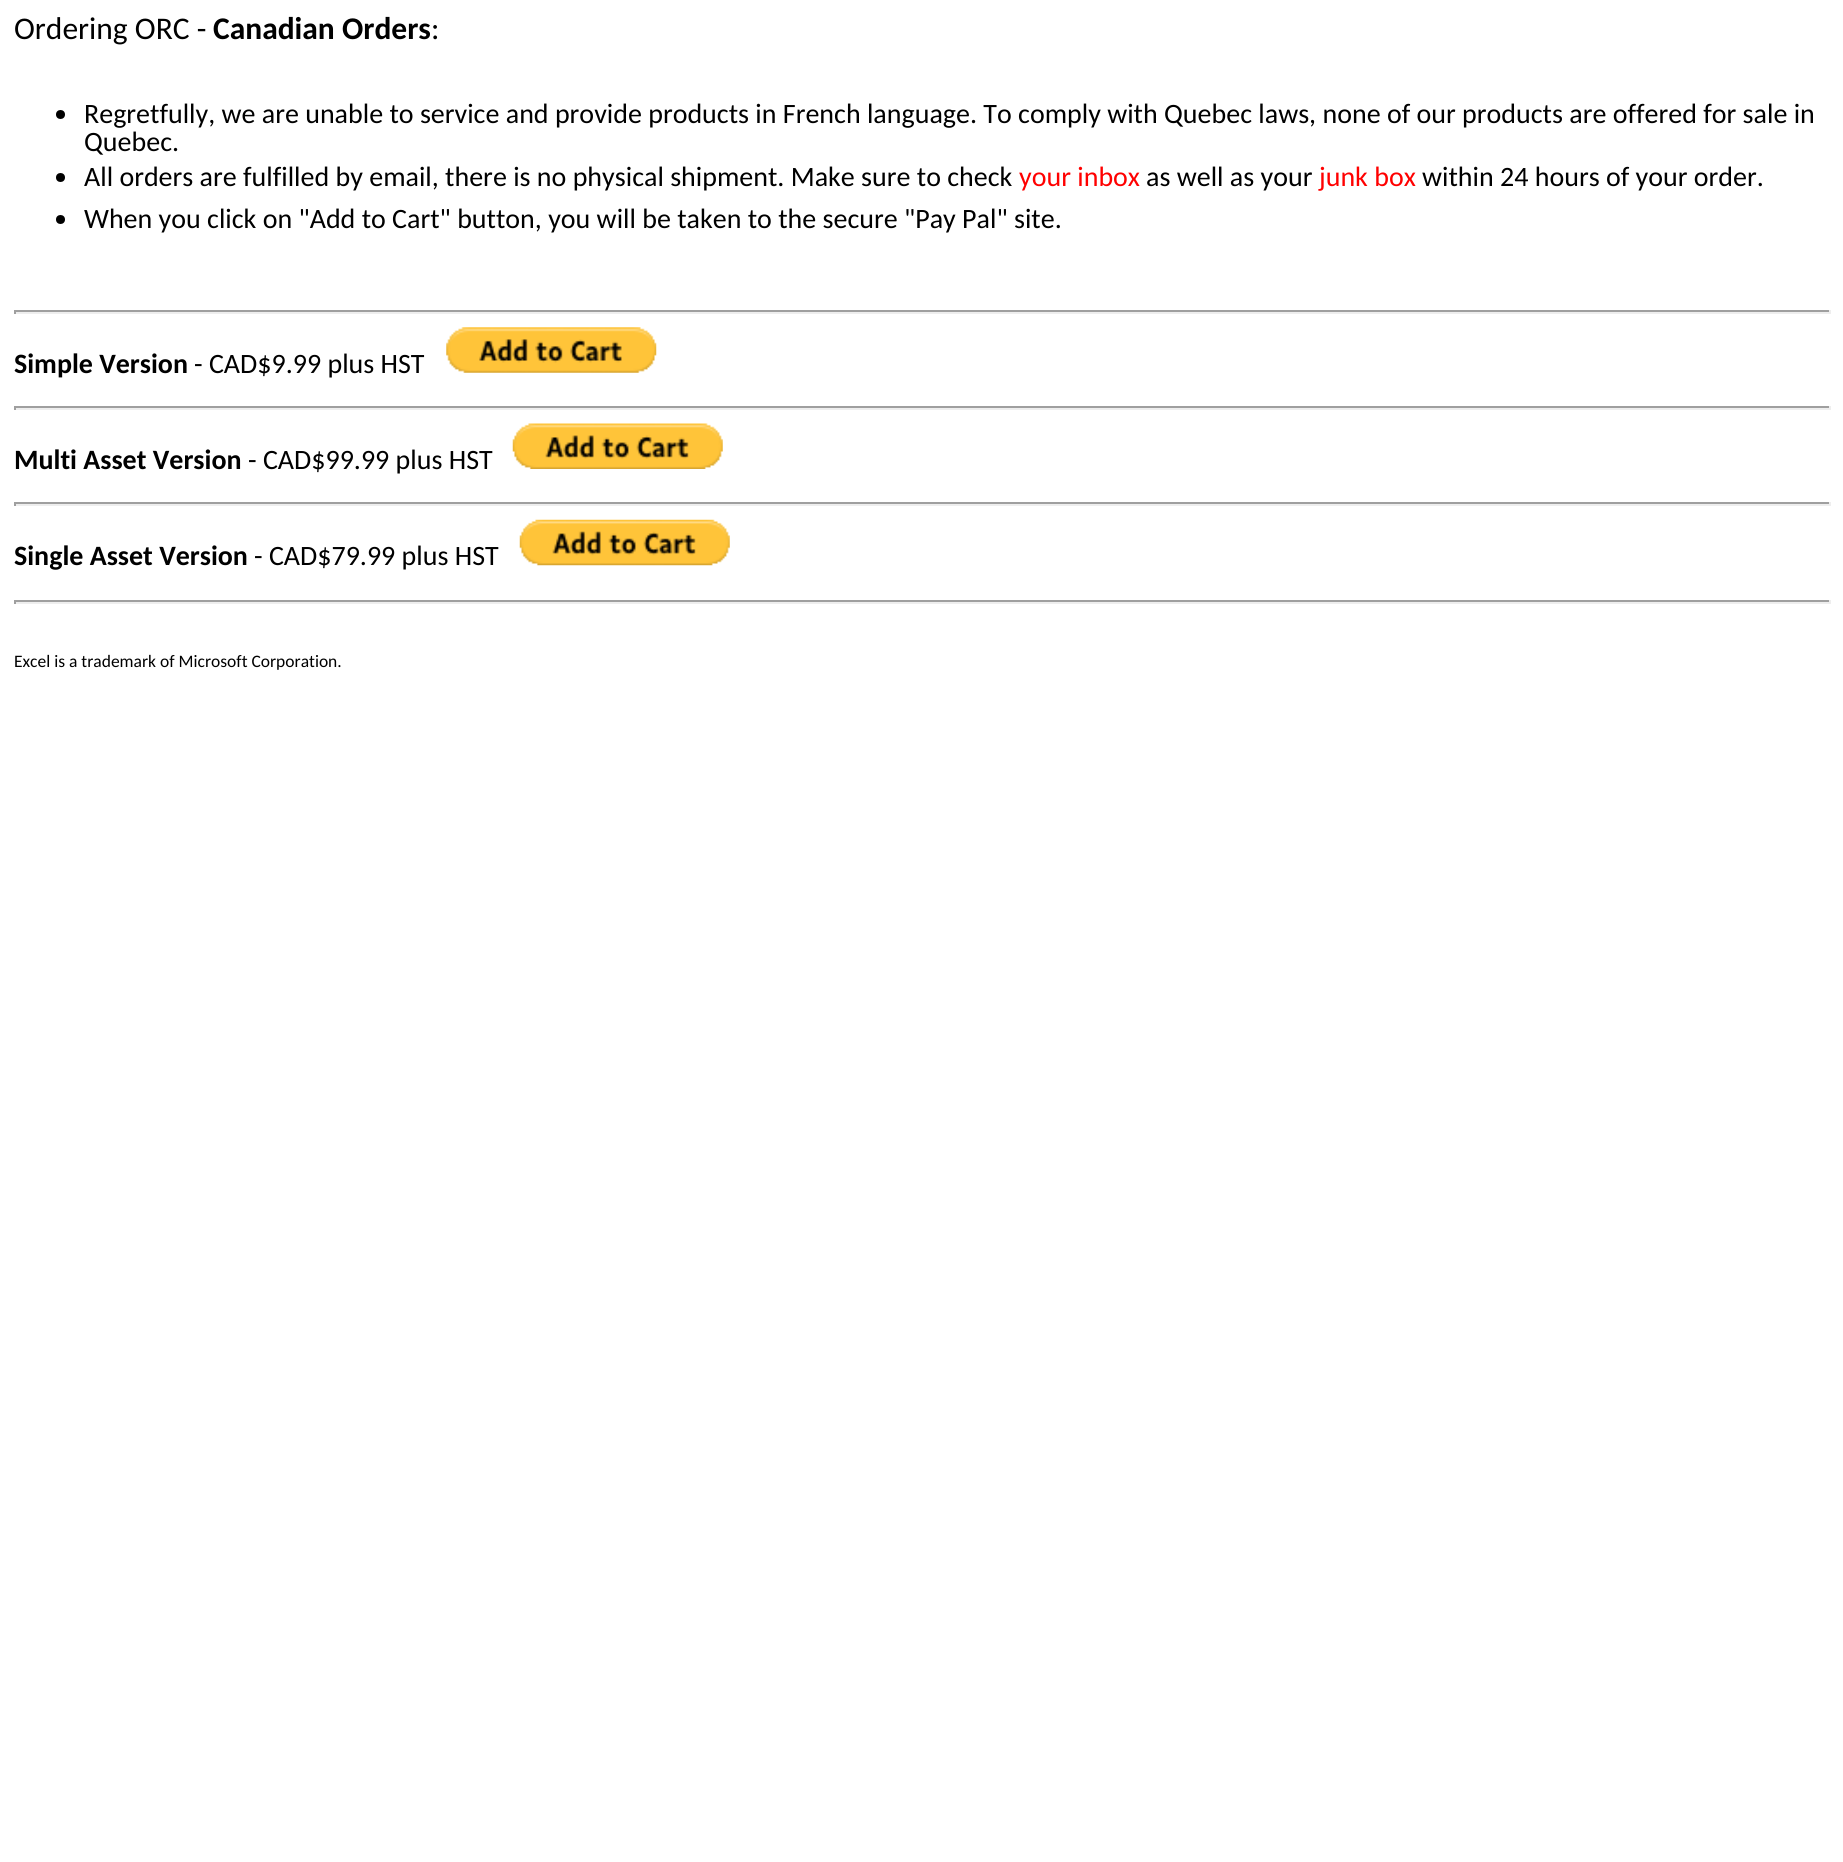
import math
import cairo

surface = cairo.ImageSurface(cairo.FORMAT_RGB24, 1843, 1862)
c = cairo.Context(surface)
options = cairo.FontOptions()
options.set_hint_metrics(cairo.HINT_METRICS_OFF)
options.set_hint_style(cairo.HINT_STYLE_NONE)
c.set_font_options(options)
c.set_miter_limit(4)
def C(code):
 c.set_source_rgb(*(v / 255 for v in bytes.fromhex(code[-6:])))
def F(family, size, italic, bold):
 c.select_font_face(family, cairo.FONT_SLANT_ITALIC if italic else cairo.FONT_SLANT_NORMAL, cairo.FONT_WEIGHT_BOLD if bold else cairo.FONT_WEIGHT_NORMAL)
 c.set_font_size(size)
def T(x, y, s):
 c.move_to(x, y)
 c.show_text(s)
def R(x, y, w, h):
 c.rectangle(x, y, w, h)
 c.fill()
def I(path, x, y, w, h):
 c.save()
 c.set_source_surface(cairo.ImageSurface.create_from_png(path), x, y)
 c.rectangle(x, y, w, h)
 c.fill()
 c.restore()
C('ffffff')
c.paint()
F('Carlito',31.5,0,0)
C('000000')
T(14,39,'Ordering ORC -')
F('Carlito',31.5,0,1)
T(213,39,'Canadian Orders')
F('Carlito',31.5,0,0)
T(431,39,':')
c.new_path()
c.arc(60.5,114.5,4.5,0,2 * math.pi)
c.fill()
F('Carlito',28,0,0)
T(84,123,'Regretfully, we are unable to service and provide products in French language. To comply with Quebec laws, none of our products are offered for sale in')
T(84,151,'Quebec.')
c.new_path()
c.arc(60.5,177.5,4.5,0,2 * math.pi)
c.fill()
T(84,186,'All orders are fulfilled by email, there is no physical shipment. Make sure to check')
C('ff0000')
T(1019,186,'your inbox')
C('000000')
T(1146,186,'as well as your')
C('ff0000')
T(1319,186,'junk box')
C('000000')
T(1422,186,'within 24 hours of your order.')
c.new_path()
c.arc(60.5,219.5,4.5,0,2 * math.pi)
c.fill()
T(84,228,'When you click on "Add to Cart" button, you will be taken to the secure "Pay Pal" site.')
C('9f9f9f')
R(14,310,1817,2)
C('eeeeee')
R(1829,310,2,4)
R(14,312,1817,2)
C('9f9f9f')
R(14,310,2,4)
F('Carlito',28,0,1)
C('000000')
T(14,373,'Simple Version')
F('Carlito',28,0,0)
T(194,373,'- CAD$9.99 plus HST')
I('1.png',446,327,211,46)
C('9f9f9f')
R(14,406,1817,2)
C('eeeeee')
R(1829,406,2,4)
R(14,408,1817,2)
C('9f9f9f')
R(14,406,2,4)
F('Carlito',28,0,1)
C('000000')
T(14,469,'Multi Asset Version')
F('Carlito',28,0,0)
T(248,469,'- CAD$99.99 plus HST')
I('2.png',512,423,211,46)
C('9f9f9f')
R(14,502,1817,2)
C('eeeeee')
R(1829,502,2,4)
R(14,504,1817,2)
C('9f9f9f')
R(14,502,2,4)
F('Carlito',28,0,1)
C('000000')
T(14,565,'Single Asset Version')
F('Carlito',28,0,0)
T(254,565,'- CAD$79.99 plus HST')
I('3.png',519,519,211,47)
C('9f9f9f')
R(14,600,1817,2)
C('eeeeee')
R(1829,600,2,4)
R(14,602,1817,2)
C('9f9f9f')
R(14,600,2,4)
F('Carlito',17.5,0,0)
C('000000')
T(14,667,'Excel is a trademark of Microsoft Corporation.')
surface.write_to_png('o.png')
